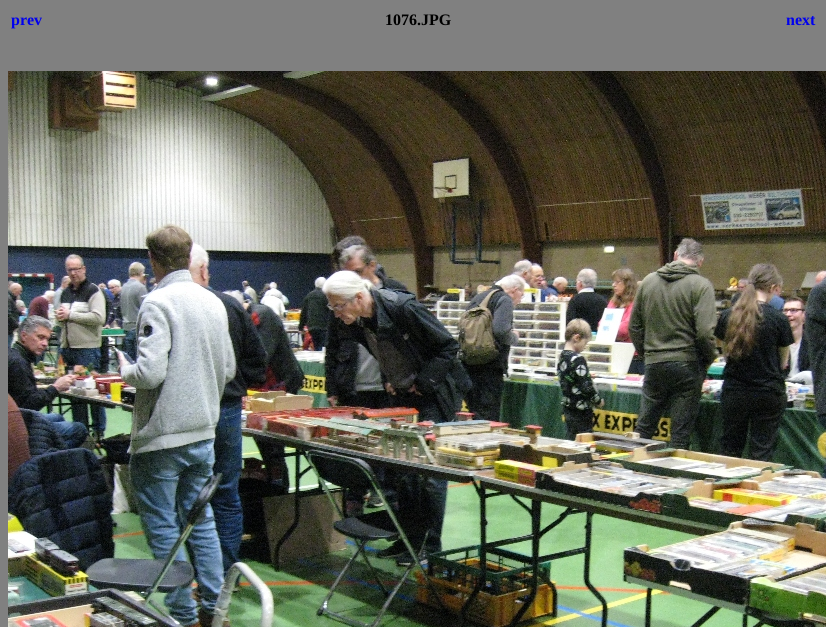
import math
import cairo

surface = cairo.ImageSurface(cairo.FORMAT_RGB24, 826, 627)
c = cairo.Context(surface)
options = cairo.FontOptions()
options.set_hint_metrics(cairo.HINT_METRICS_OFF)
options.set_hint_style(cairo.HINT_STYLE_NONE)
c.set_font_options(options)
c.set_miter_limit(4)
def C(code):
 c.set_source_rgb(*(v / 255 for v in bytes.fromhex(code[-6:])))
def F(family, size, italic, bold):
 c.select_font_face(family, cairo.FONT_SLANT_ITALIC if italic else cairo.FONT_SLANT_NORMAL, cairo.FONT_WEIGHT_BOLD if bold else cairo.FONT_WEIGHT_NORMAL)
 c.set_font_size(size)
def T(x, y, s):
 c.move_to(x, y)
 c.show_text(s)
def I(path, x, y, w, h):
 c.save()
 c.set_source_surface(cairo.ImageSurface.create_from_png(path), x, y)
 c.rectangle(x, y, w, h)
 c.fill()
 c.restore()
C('808080')
c.paint()
F('Liberation Serif',16,0,1)
C('0000ee')
T(11,25,'prev')
C('000000')
T(385,25,'1076.JPG')
C('0000ee')
T(786,25,'next')
I('1.png',8,71,818,556)
surface.write_to_png('o.png')
